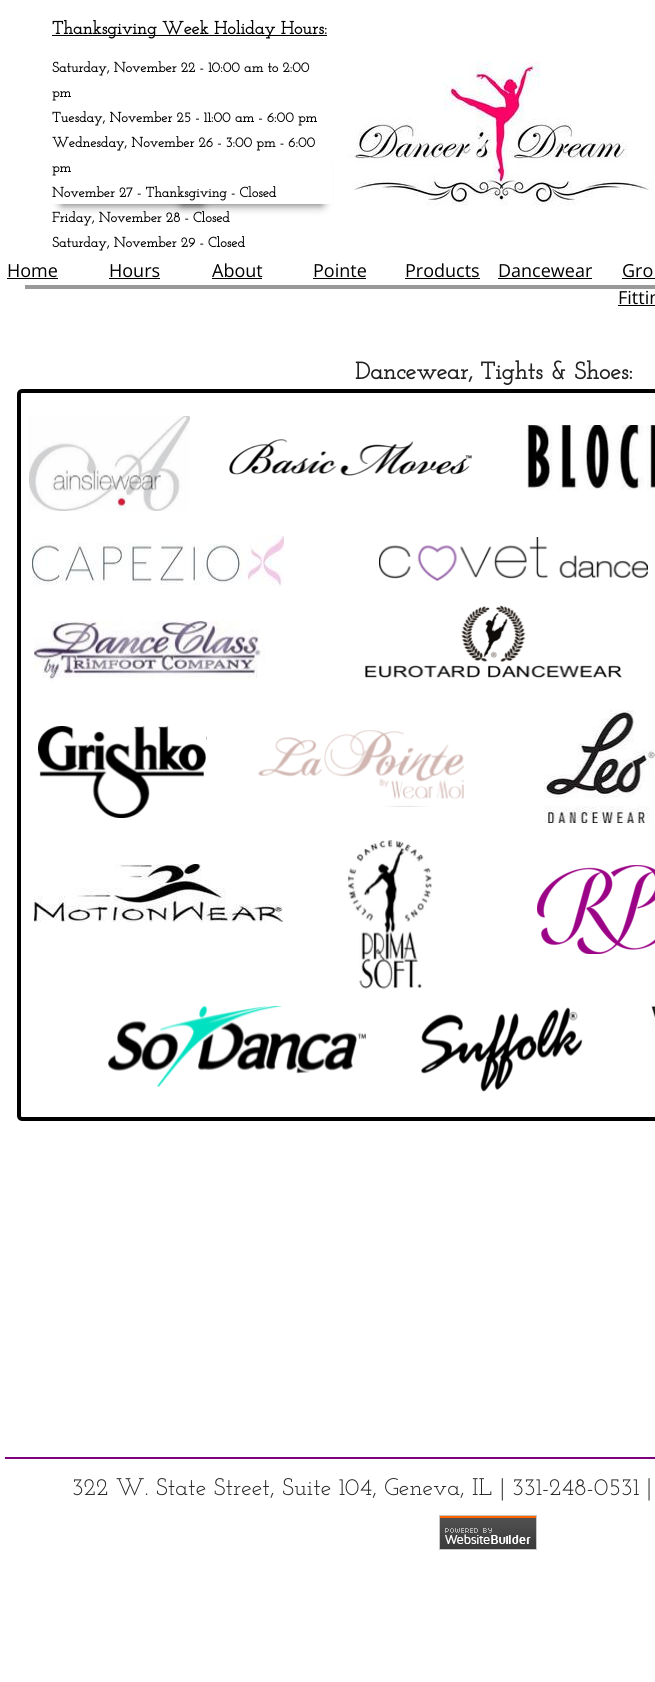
import math
import cairo

surface = cairo.ImageSurface(cairo.FORMAT_RGB24, 655, 1682)
c = cairo.Context(surface)
options = cairo.FontOptions()
options.set_hint_metrics(cairo.HINT_METRICS_OFF)
options.set_hint_style(cairo.HINT_STYLE_NONE)
c.set_font_options(options)
c.set_miter_limit(4)
def C(code):
 c.set_source_rgb(*(v / 255 for v in bytes.fromhex(code[-6:])))
def F(family, size, italic, bold):
 c.select_font_face(family, cairo.FONT_SLANT_ITALIC if italic else cairo.FONT_SLANT_NORMAL, cairo.FONT_WEIGHT_BOLD if bold else cairo.FONT_WEIGHT_NORMAL)
 c.set_font_size(size)
def T(x, y, s):
 c.move_to(x, y)
 c.show_text(s)
def R(x, y, w, h):
 c.rectangle(x, y, w, h)
 c.fill()
def Q(x, y, w, h, r):
 c.new_sub_path()
 for i, (u, v) in enumerate([(x + w - r, y + h - r), (x + r, y + h - r), (x + r, y + r), (x + w - r, y + r)]):
  c.arc(u, v, r, i * math.pi / 2, (i + 1) * math.pi / 2)
 c.close_path()
def S(x, y, w, h, r, blur, alpha):
 c.push_group_with_content(cairo.CONTENT_ALPHA)
 c.set_operator(cairo.OPERATOR_SOURCE)
 for i in range(15, -16, -2):
  e = blur * i / 6
  if min(w, h) + 2 * e > 0:
   c.set_source_rgba(0, 0, 0, alpha * math.erfc((i - 1) / 8.5) / 2)
   Q(x - e, y - e, w + 2 * e, h + 2 * e, max(0, min(r + e + blur * .6, min(w, h) / 2 + e)))
   c.fill()
 c.mask(c.pop_group())
def I(path, x, y, w, h):
 c.save()
 c.set_source_surface(cairo.ImageSurface.create_from_png(path), x, y)
 c.rectangle(x, y, w, h)
 c.fill()
 c.restore()
C('ffffff')
c.paint()
C('000000')
S(62,164,140,40,0,5,.7)
S(182,164,140,40,0,5,.7)
C('ffffff')
R(52,152,280,52)
C('000000')
R(52,35,275,1)
F('Josefin Slab',18,0,1)
T(52,34,'Thanksgiving Week Holiday Hours:')
F('Josefin Slab',14,0,1)
T(52,72,'Saturday, November 22 - 10:00 am to 2:00')
T(52,97,'pm')
T(52,122,'Tuesday, November 25 - 11:00 am - 6:00 pm')
T(52,147,'Wednesday, November 26 - 3:00 pm - 6:00')
T(52,172,'pm')
T(52,197,'November 27 - Thanksgiving - Closed')
T(52,222,'Friday, November 28 - Closed')
T(52,247,'Saturday, November 29 - Closed')
I('1.png',348,61,304,145)
F('Open Sans',18,0,0)
T(7,277,'Home')
R(7,278,51,1)
T(109,277,'Hours')
R(109,278,51,1)
T(212,277,'About')
R(212,278,50,1)
T(313,277,'Pointe')
R(313,278,53,1)
T(405,277,'Products')
R(405,278,75,1)
T(498,277,'Dancewear')
R(498,278,94,1)
T(622,277,'Gro')
R(622,278,33,1)
T(618,304,'Fittin')
R(618,305,37,1)
C('999999')
R(25,285,630,4)
F('Josefin Slab',24,0,1)
C('222222')
T(355,379,'Dancewear, Tights & Shoes:')
Q(19,391,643,728,3)
C('000000')
c.set_line_width(4)
c.stroke()
I('2.png',29,416,161,95)
I('3.png',229,439,243,37)
I('4.png',527,425,128,65)
I('5.png',32,535,252,51)
I('6.png',379,537,269,44)
I('7.png',34,621,231,61)
I('8.png',365,605,257,73)
I('9.png',38,726,169,92)
I('10.png',258,730,207,77)
I('11.png',544,710,111,113)
I('12.png',34,864,249,58)
I('13.png',347,840,85,149)
I('14.png',537,865,118,89)
I('15.png',108,1006,258,81)
I('16.png',421,1007,162,85)
I('17.png',651,1005,4,26)
C('7f007f')
R(5,1457,650,2)
F('Josefin Slab Thin',24,0,0)
C('222222')
T(72,1495,'322 W. State Street, Suite 104, Geneva, IL | 331-248-0531 |')
I('18.png',439,1515,98,35)
surface.write_to_png('o.png')
